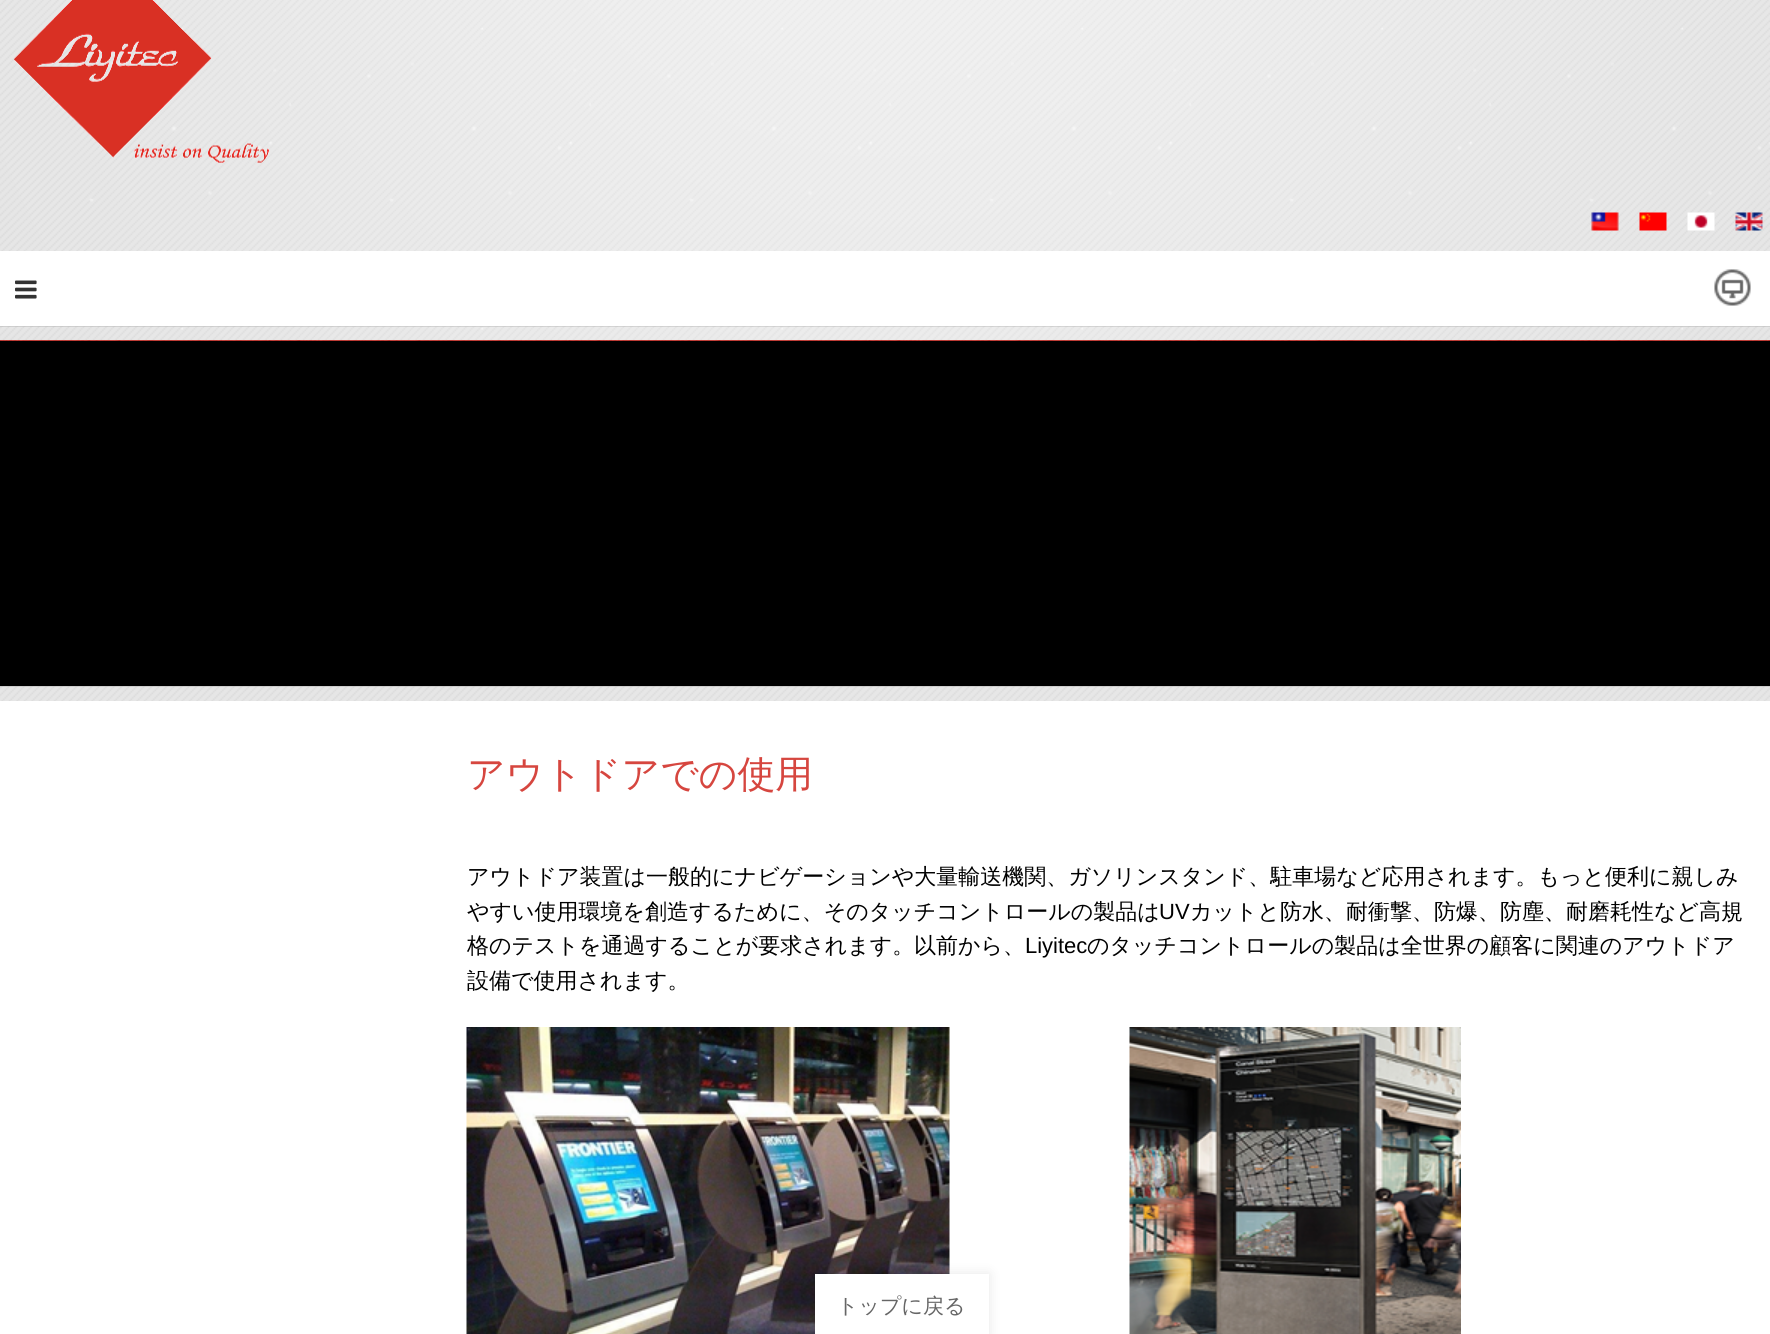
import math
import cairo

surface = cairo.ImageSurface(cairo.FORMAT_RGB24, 1770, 1334)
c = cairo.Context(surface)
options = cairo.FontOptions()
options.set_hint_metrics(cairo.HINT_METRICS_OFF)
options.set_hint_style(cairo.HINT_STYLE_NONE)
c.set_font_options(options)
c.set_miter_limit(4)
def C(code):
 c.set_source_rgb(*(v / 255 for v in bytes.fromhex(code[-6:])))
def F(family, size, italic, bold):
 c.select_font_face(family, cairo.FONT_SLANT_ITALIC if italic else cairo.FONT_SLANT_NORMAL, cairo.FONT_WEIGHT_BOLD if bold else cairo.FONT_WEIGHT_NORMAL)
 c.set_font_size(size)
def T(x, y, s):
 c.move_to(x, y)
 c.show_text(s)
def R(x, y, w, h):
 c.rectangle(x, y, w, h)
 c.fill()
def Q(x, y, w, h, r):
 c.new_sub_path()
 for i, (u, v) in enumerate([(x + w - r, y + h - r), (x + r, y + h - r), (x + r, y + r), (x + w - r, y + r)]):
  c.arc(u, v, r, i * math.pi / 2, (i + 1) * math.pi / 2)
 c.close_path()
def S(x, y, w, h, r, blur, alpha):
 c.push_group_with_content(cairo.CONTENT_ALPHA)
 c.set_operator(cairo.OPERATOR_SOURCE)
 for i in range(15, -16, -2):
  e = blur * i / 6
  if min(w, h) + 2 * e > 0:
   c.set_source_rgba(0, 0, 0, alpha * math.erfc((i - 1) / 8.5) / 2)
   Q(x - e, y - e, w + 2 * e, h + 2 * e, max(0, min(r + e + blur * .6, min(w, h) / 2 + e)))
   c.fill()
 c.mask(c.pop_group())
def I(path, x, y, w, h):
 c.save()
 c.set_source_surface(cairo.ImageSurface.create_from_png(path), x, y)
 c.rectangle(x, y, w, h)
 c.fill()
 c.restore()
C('ffffff')
c.paint()
I('1.png',0,0,1770,701)
I('2.png',14,0,255,163)
I('3.png',1591,212,28,19)
I('4.png',1639,212,28,19)
I('5.png',1687,212,28,19)
I('6.png',1735,212,28,19)
c.set_source_rgba(0,0,0,0.1)
R(0,326,1770,1)
C('ffffff')
R(0,251,1770,75)
I('7.png',15,280,22,19)
I('8.png',1714,269,37,37)
c.set_source_rgba(0,0,0,0.1)
R(0,686,1770,1)
I('9.png',0,340,1770,1)
C('000000')
R(0,341,1770,345)
F('WenQuanYi Zen Hei Medium',37.75,0,0)
C('d6463f')
T(467,787,'アウトドアでの使用')
F('WenQuanYi Zen Hei Medium',22,0,0)
C('000000')
T(467,884,'アウトドア装置は一般的にナビゲーションや大量輸送機関、ガソリンスタンド、駐車場など応用されます。もっと便利に親しみ')
T(467,919,'やすい使用環境を創造するために、そのタッチコントロールの製品は')
F('Liberation Sans',22,0,0)
T(1159,919,'UV')
F('WenQuanYi Zen Hei Medium',22,0,0)
T(1190,919,'カットと防水、耐衝撃、防爆、防塵、耐磨耗性など高規')
T(467,953,'格のテストを通過することが要求されます。')
T(914,953,'以前から、')
F('Liberation Sans',22,0,0)
T(1025,953,'Liyitec')
F('WenQuanYi Zen Hei Medium',22,0,0)
T(1087,953,'のタッチコントロールの製品は全世界の顧客に関連のアウトドア')
T(467,988,'設備で使用されます。')
I('10.png',466,1027,484,307)
I('11.png',1129,1027,332,307)
C('000000')
S(815,1274,174,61,0,6,.1)
C('ffffff')
R(815,1274,174,60)
F('WenQuanYi Zen Hei Medium',21,0,0)
C('666666')
T(837,1313,'トップに戻る')
surface.write_to_png('o.png')
